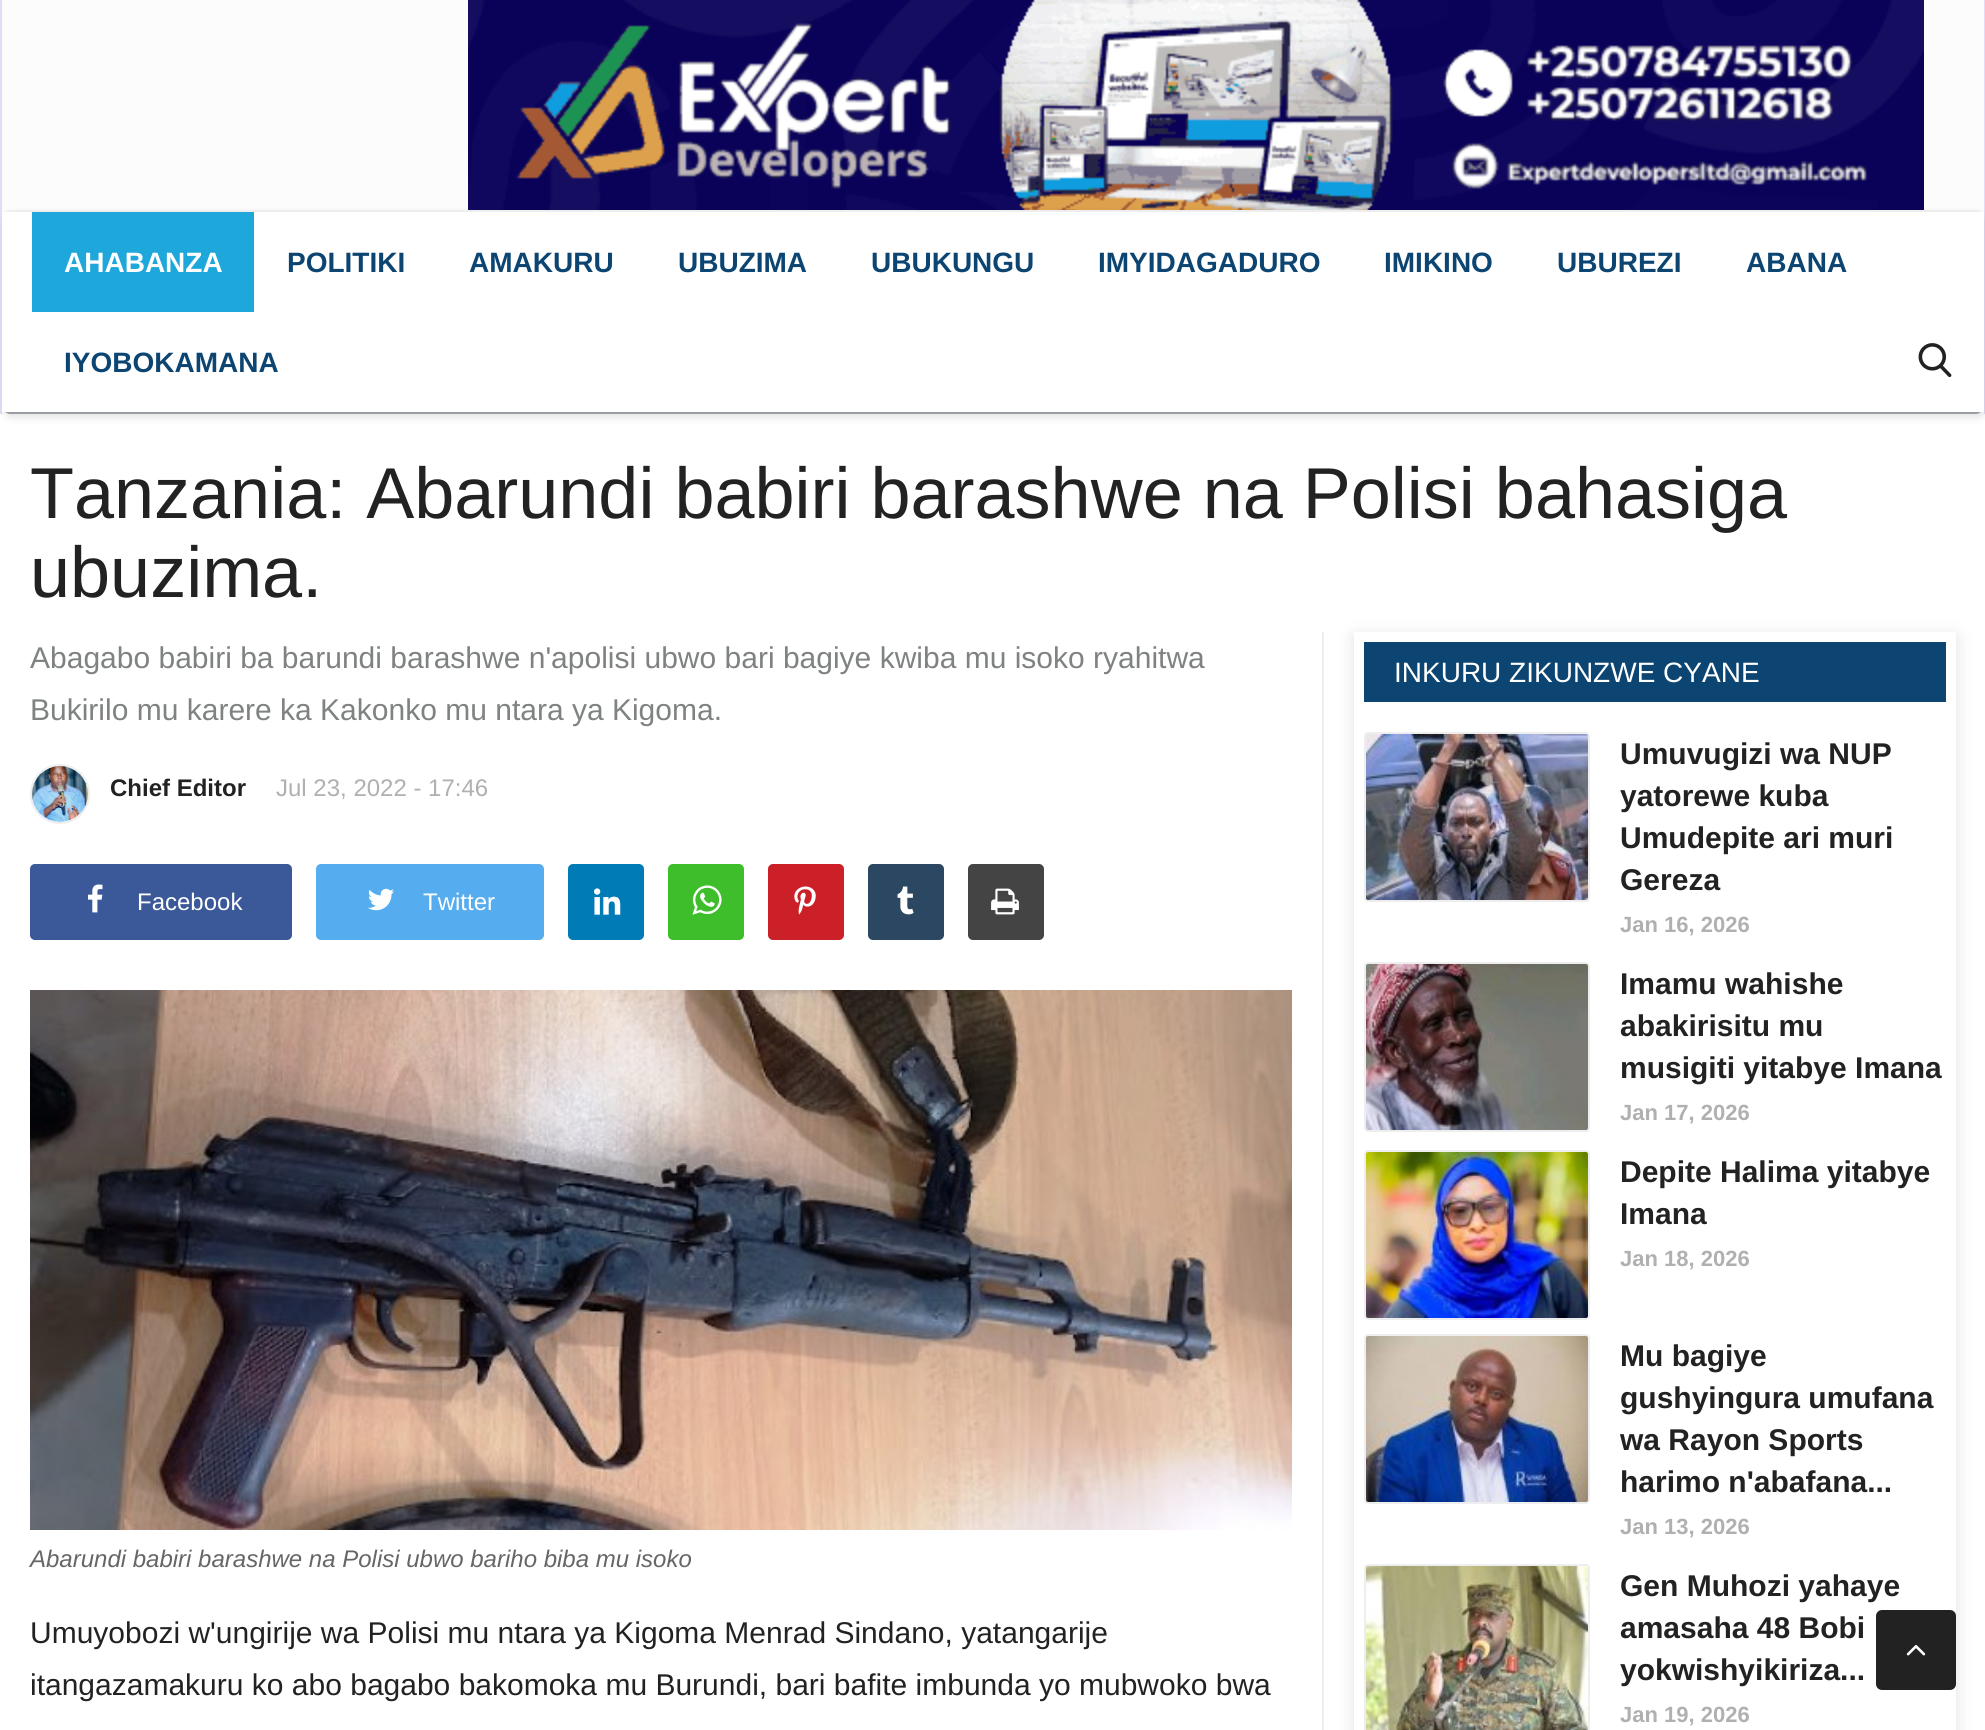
import math
import cairo

surface = cairo.ImageSurface(cairo.FORMAT_RGB24, 1985, 1730)
c = cairo.Context(surface)
options = cairo.FontOptions()
options.set_hint_metrics(cairo.HINT_METRICS_OFF)
options.set_hint_style(cairo.HINT_STYLE_NONE)
c.set_font_options(options)
c.set_miter_limit(4)
def C(code):
 c.set_source_rgb(*(v / 255 for v in bytes.fromhex(code[-6:])))
def F(family, size, italic, bold):
 c.select_font_face(family, cairo.FONT_SLANT_ITALIC if italic else cairo.FONT_SLANT_NORMAL, cairo.FONT_WEIGHT_BOLD if bold else cairo.FONT_WEIGHT_NORMAL)
 c.set_font_size(size)
def T(x, y, s):
 c.move_to(x, y)
 c.show_text(s)
def R(x, y, w, h):
 c.rectangle(x, y, w, h)
 c.fill()
def Q(x, y, w, h, r):
 c.new_sub_path()
 for i, (u, v) in enumerate([(x + w - r, y + h - r), (x + r, y + h - r), (x + r, y + r), (x + w - r, y + r)]):
  c.arc(u, v, r, i * math.pi / 2, (i + 1) * math.pi / 2)
 c.close_path()
def S(x, y, w, h, r, blur, alpha):
 c.push_group_with_content(cairo.CONTENT_ALPHA)
 c.set_operator(cairo.OPERATOR_SOURCE)
 for i in range(15, -16, -2):
  e = blur * i / 6
  if min(w, h) + 2 * e > 0:
   c.set_source_rgba(0, 0, 0, alpha * math.erfc((i - 1) / 8.5) / 2)
   Q(x - e, y - e, w + 2 * e, h + 2 * e, max(0, min(r + e + blur * .6, min(w, h) / 2 + e)))
   c.fill()
 c.mask(c.pop_group())
def I(path, x, y, w, h):
 c.save()
 c.set_source_surface(cairo.ImageSurface.create_from_png(path), x, y)
 c.rectangle(x, y, w, h)
 c.fill()
 c.restore()
C('ffffff')
c.paint()
C('fcfcfc')
R(2,0,1982,414)
C('e2dcf7')
R(1984,0,1,414)
R(0,0,2,414)
I('1.png',468,0,1456,210)
C('000000')
S(4,214,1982,204,8,4,.1)
C('ffffff')
Q(2,210,1982,204,8)
c.fill()
C('eeeeee')
c.new_path()
c.move_to(10,210)
c.curve_to(6,210,2,214,2,218)
c.curve_to(2,215,6,212,10,212)
c.line_to(1976,212)
c.curve_to(1980,212,1984,215,1984,218)
c.curve_to(1984,214,1980,210,1976,210)
c.close_path()
c.fill()
C('989ea4')
c.new_path()
c.move_to(1976,414)
c.curve_to(1980,414,1984,410,1984,406)
c.curve_to(1984,409,1980,412,1976,412)
c.line_to(10,412)
c.curve_to(6,412,2,409,2,406)
c.curve_to(2,410,6,414,10,414)
c.close_path()
c.fill()
C('ffffff')
R(2,212,1982,200)
C('1da7da')
R(32,212,222,100)
F('Liberation Sans',28,0,1)
C('ffffff')
T(64,272,'AHABANZA')
C('0c4572')
T(287,272,'POLITIKI')
T(469,272,'AMAKURU')
T(678,272,'UBUZIMA')
T(871,272,'UBUKUNGU')
T(1098,272,'IMYIDAGADURO')
T(1384,272,'IMIKINO')
T(1557,272,'UBUREZI')
T(1746,272,'ABANA')
T(64,372,'IYOBOKAMANA')
I('2.png',1918,343,34,35)
F('Liberation Sans',72,0,0)
C('222222')
T(30,518,'Tanzania: Abarundi babiri barashwe na Polisi bahasiga')
T(30,597,'ubuzima.')
C('eeeeee')
R(1322,632,2,1098)
F('Liberation Sans',30,0,0)
C('7f8282')
T(30,668,'Abagabo babiri ba barundi barashwe n\'apolisi ubwo bari bagiye kwiba mu isoko ryahitwa')
T(30,720,'Bukirilo mu karere ka Kakonko mu ntara ya Kigoma.')
c.new_path()
c.arc(60,794,29,0,2 * math.pi)
C('eeeeee')
c.stroke()
I('3.png',32,766,56,56)
F('Liberation Sans',24,0,1)
C('222222')
T(110,796,'Chief Editor')
F('Liberation Sans',24,0,0)
C('b0b0b0')
T(276,796,'Jul 23, 2022 - 17:46')
C('3b5998')
Q(30,864,262,76,5)
c.fill()
I('4.png',88,884,15,29)
C('ffffff')
T(137,910,'Facebook')
C('55acee')
Q(316,864,228,76,5)
c.fill()
I('5.png',368,888,26,23)
C('ffffff')
T(423,910,'Twitter')
C('007bb5')
Q(568,864,76,76,5)
c.fill()
I('6.png',594,888,27,27)
C('3ebe2b')
Q(668,864,76,76,5)
c.fill()
I('7.png',692,885,30,30)
C('cb2027')
Q(768,864,76,76,5)
c.fill()
I('8.png',794,886,22,29)
C('2c4762')
Q(868,864,76,76,5)
c.fill()
I('9.png',897,886,17,29)
C('444444')
Q(968,864,76,76,5)
c.fill()
I('10.png',991,888,28,27)
I('11.png',30,990,1262,540)
F('Liberation Sans',24,1,0)
C('666666')
T(30,1567,'Abarundi babiri barashwe na Polisi ubwo bariho biba mu isoko')
F('Liberation Sans',30,0,0)
C('222222')
T(30,1643,'Umuyobozi w\'ungirije wa Polisi mu ntara ya Kigoma Menrad Sindano, yatangarije')
T(30,1695,'itangazamakuru ko abo bagabo bakomoka mu Burundi, bari bafite imbunda yo mubwoko bwa')
c.save()
c.set_fill_rule(cairo.FILL_RULE_EVEN_ODD)
c.new_path()
c.move_to(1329,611)
c.line_to(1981,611)
c.line_to(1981,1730)
c.line_to(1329,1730)
c.close_path()
c.move_to(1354,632)
c.line_to(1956,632)
c.line_to(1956,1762)
c.line_to(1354,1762)
c.close_path()
c.clip()
C('636363')
S(1354,636,602,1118,0,8,.2)
c.restore()
C('0c4572')
R(1364,642,582,60)
F('Liberation Sans',28,0,0)
C('ffffff')
T(1394,682,'INKURU ZIKUNZWE CYANE')
Q(1365,733,224,168,3)
C('eeeeee')
c.stroke()
I('12.png',1366,734,222,166)
F('Liberation Sans',30,0,1)
C('222222')
T(1620,764,'Umuvugizi wa NUP')
T(1620,806,'yatorewe kuba')
T(1620,848,'Umudepite ari muri')
T(1620,890,'Gereza')
F('Liberation Sans',22,0,1)
C('b0b0b0')
T(1620,932,'Jan 16, 2026')
Q(1365,963,224,168,3)
C('eeeeee')
c.stroke()
I('13.png',1366,964,222,166)
F('Liberation Sans',30,0,1)
C('222222')
T(1620,994,'Imamu wahishe')
T(1620,1036,'abakirisitu mu')
T(1620,1078,'musigiti yitabye Imana')
F('Liberation Sans',22,0,1)
C('b0b0b0')
T(1620,1120,'Jan 17, 2026')
Q(1365,1151,224,168,3)
C('eeeeee')
c.stroke()
I('14.png',1366,1152,222,166)
F('Liberation Sans',30,0,1)
C('222222')
T(1620,1182,'Depite Halima yitabye')
T(1620,1224,'Imana')
F('Liberation Sans',22,0,1)
C('b0b0b0')
T(1620,1266,'Jan 18, 2026')
Q(1365,1335,224,168,3)
C('eeeeee')
c.stroke()
I('15.png',1366,1336,222,166)
F('Liberation Sans',30,0,1)
C('222222')
T(1620,1366,'Mu bagiye')
T(1620,1408,'gushyingura umufana')
T(1620,1450,'wa Rayon Sports')
T(1620,1492,'harimo n\'abafana...')
F('Liberation Sans',22,0,1)
C('b0b0b0')
T(1620,1534,'Jan 13, 2026')
Q(1365,1565,224,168,3)
C('eeeeee')
c.stroke()
I('16.png',1366,1566,222,164)
F('Liberation Sans',30,0,1)
C('222222')
T(1620,1596,'Gen Muhozi yahaye')
T(1620,1638,'amasaha 48 Bobi')
T(1620,1680,'yokwishyikiriza...')
F('Liberation Sans',22,0,1)
C('b0b0b0')
T(1620,1722,'Jan 19, 2026')
C('222222')
Q(1876,1610,80,80,6)
c.fill()
I('17.png',1906,1645,20,11)
surface.write_to_png('o.png')
